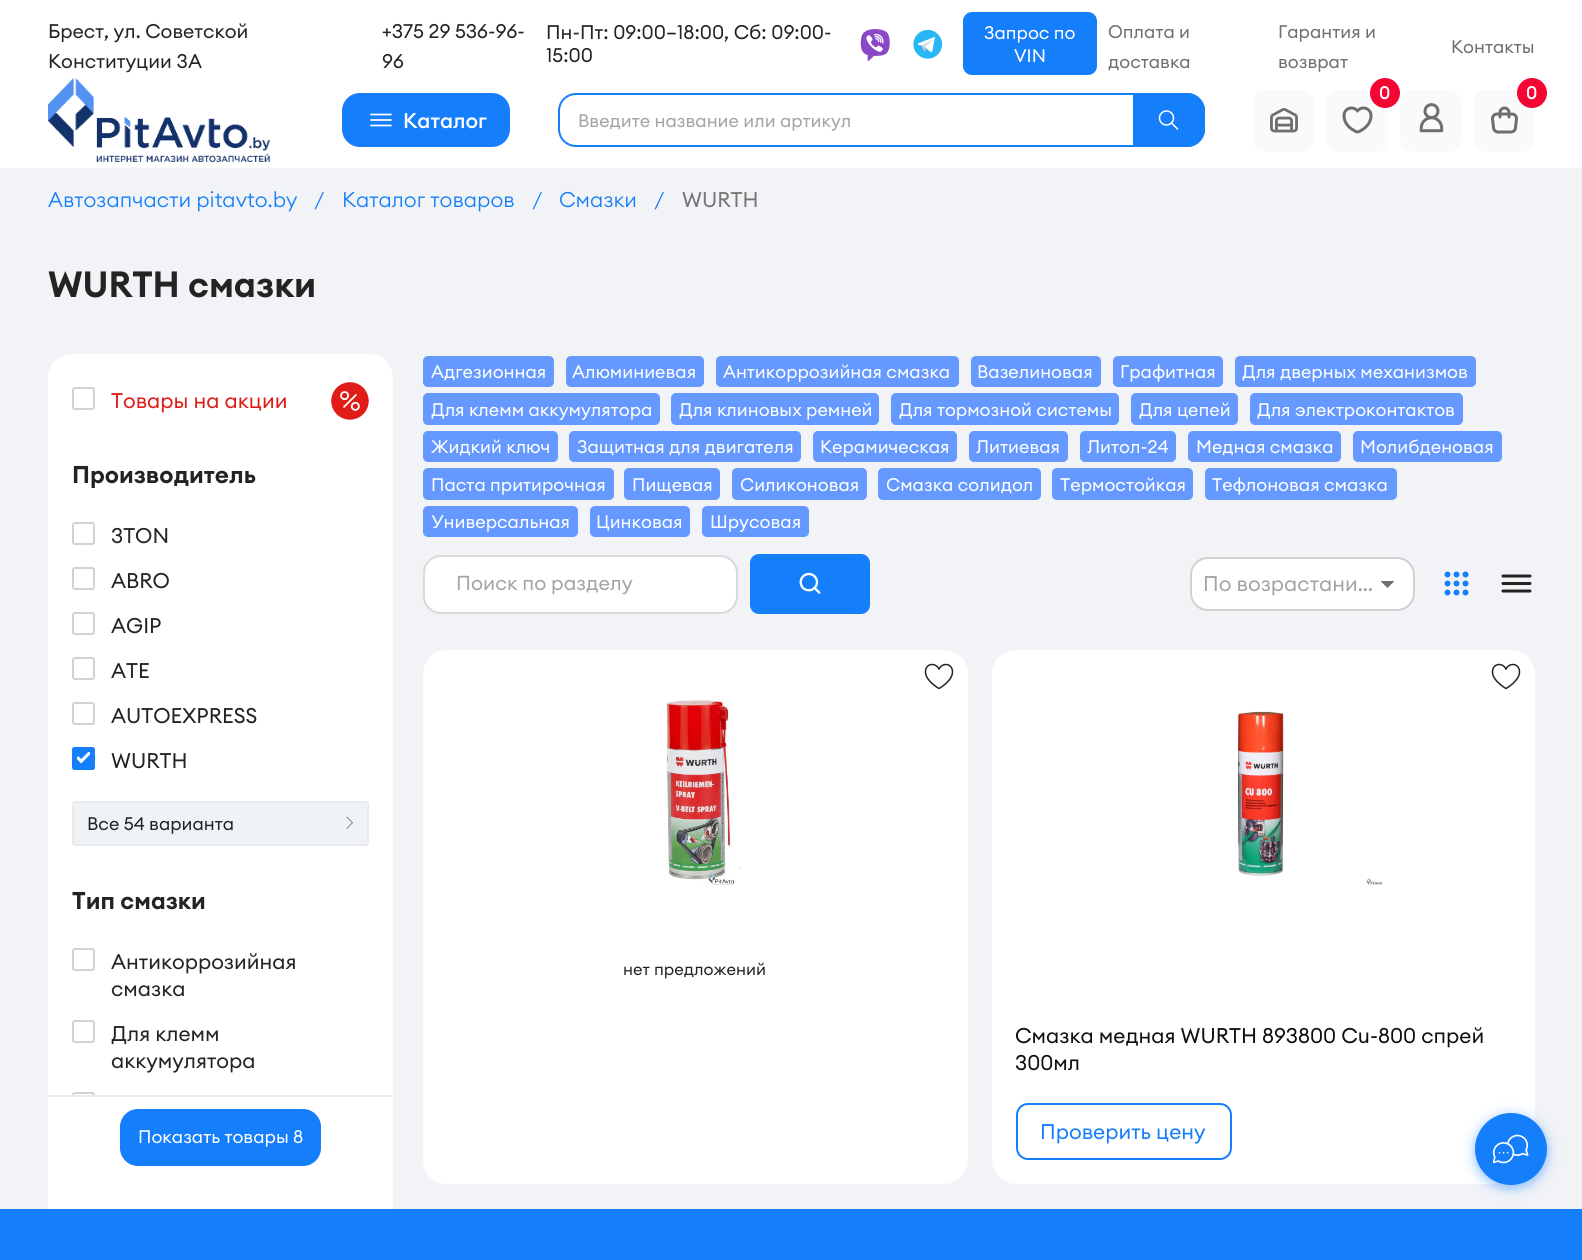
import math
import cairo

surface = cairo.ImageSurface(cairo.FORMAT_RGB24, 1582, 1260)
c = cairo.Context(surface)
options = cairo.FontOptions()
options.set_hint_metrics(cairo.HINT_METRICS_OFF)
options.set_hint_style(cairo.HINT_STYLE_NONE)
c.set_font_options(options)
c.set_miter_limit(4)
def C(code):
 c.set_source_rgb(*(v / 255 for v in bytes.fromhex(code[-6:])))
def F(family, size, italic, bold):
 c.select_font_face(family, cairo.FONT_SLANT_ITALIC if italic else cairo.FONT_SLANT_NORMAL, cairo.FONT_WEIGHT_BOLD if bold else cairo.FONT_WEIGHT_NORMAL)
 c.set_font_size(size)
def T(x, y, s):
 c.move_to(x, y)
 c.show_text(s)
def R(x, y, w, h):
 c.rectangle(x, y, w, h)
 c.fill()
def Q(x, y, w, h, r):
 c.new_sub_path()
 for i, (u, v) in enumerate([(x + w - r, y + h - r), (x + r, y + h - r), (x + r, y + r), (x + w - r, y + r)]):
  c.arc(u, v, r, i * math.pi / 2, (i + 1) * math.pi / 2)
 c.close_path()
def S(x, y, w, h, r, blur, alpha):
 c.push_group_with_content(cairo.CONTENT_ALPHA)
 c.set_operator(cairo.OPERATOR_SOURCE)
 for i in range(15, -16, -2):
  e = blur * i / 6
  if min(w, h) + 2 * e > 0:
   c.set_source_rgba(0, 0, 0, alpha * math.erfc((i - 1) / 8.5) / 2)
   Q(x - e, y - e, w + 2 * e, h + 2 * e, max(0, min(r + e + blur * .6, min(w, h) / 2 + e)))
   c.fill()
 c.mask(c.pop_group())
def I(path, x, y, w, h):
 c.save()
 c.set_source_surface(cairo.ImageSurface.create_from_png(path), x, y)
 c.rectangle(x, y, w, h)
 c.fill()
 c.restore()
C('f2f3f7')
c.paint()
C('ffffff')
R(0,0,1582,168)
F('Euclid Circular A',19.5,0,0)
C('232323')
T(48,38,'Брест, ул. Советской')
T(48,68,'Конституции 3А')
T(382,38,'+375 29 536-96-')
T(382,68,'96')
T(546,39,'Пн-Пт: 09:00–18:00, Сб: 09:00-')
T(546,62,'15:00')
I('1.png',860,29,30,32)
I('2.png',913,29,30,30)
C('157efb')
Q(963,12,134,63,9)
c.fill()
F('Euclid Circular A',18,0,0)
C('ffffff')
T(984,39,'Запрос по')
T(1014,62,'VIN')
C('6f6f6f')
T(1108,38,'Оплата и')
T(1108,68,'доставка')
T(1278,38,'Гарантия и')
T(1278,68,'возврат')
T(1451,53,'Контакты')
I('3.png',48,78,222,84)
C('fafafc')
Q(1253,90,61,62,12)
c.fill()
I('4.png',1270,108,28,25)
Q(1326,90,62,62,12)
c.fill()
I('5.png',1342,106,31,28)
C('f30732')
c.arc(1385,93,15,0,2 * math.pi)
c.fill()
F('Euclid Circular A Medium',18,0,0)
C('ffffff')
T(1379,99,'0')
C('fafafc')
Q(1400,90,61,62,12)
c.fill()
I('6.png',1419,103,25,30)
Q(1473,90,62,62,12)
c.fill()
I('7.png',1491,106,27,28)
C('f30732')
c.arc(1532,93,15,0,2 * math.pi)
c.fill()
C('ffffff')
T(1526,99,'0')
C('157efb')
Q(343,94,166,52,17)
c.fill_preserve()
c.stroke()
c.new_path()
c.move_to(371,125.5)
c.line_to(391,125.5)
c.move_to(371,120)
c.line_to(391,120)
c.move_to(371,114.5)
c.line_to(391,114.5)
C('ffffff')
c.set_line_width(1.7)
c.set_line_cap(cairo.LINE_CAP_ROUND)
c.set_line_join(cairo.LINE_JOIN_ROUND)
c.stroke()
F('Euclid Circular A Medium',21,0,0)
T(403,128,'Каталог')
Q(559,94,645,52,17)
C('157efb')
c.set_line_width(2)
c.set_line_cap(cairo.LINE_CAP_BUTT)
c.set_line_join(cairo.LINE_JOIN_MITER)
c.stroke()
F('Euclid Circular A',18,0,0)
C('a4a4a4')
T(578,127,'Введите название или артикул')
C('157efb')
c.new_path()
c.move_to(1133,93)
c.line_to(1187,93)
c.curve_to(1197,93,1205,101,1205,111)
c.line_to(1205,129)
c.curve_to(1205,139,1197,147,1187,147)
c.line_to(1133,147)
c.close_path()
c.fill()
I('8.png',1158,110,21,20)
F('Euclid Circular A Light',21,0,0)
T(48,207,'Автозапчасти pitavto.by')
T(314,207,'/')
T(342,207,'Каталог товаров')
T(532,207,'/')
T(559,207,'Смазки')
T(654,207,'/')
F('Euclid Circular A',21,0,0)
C('757575')
T(682,207,'WURTH')
F('Euclid Circular A SemiBold',36,0,0)
C('232323')
T(48,297,'WURTH смазки')
C('ffffff')
Q(48,354,345,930,24)
c.fill()
Q(73,388,21,21,2)
C('d3d2d2')
c.stroke()
F('Euclid Circular A',21,0,0)
C('e11b17')
T(111,408,'Товары на акции')
I('9.png',331,382,38,38)
F('Euclid Circular A SemiBold',24,0,0)
C('232323')
T(72,483,'Производитель')
Q(73,523,21,21,2)
C('d3d2d2')
c.stroke()
F('Euclid Circular A',21,0,0)
C('232323')
T(111,543,'3TON')
Q(73,568,21,21,2)
C('d3d2d2')
c.stroke()
C('232323')
T(111,588,'ABRO')
Q(73,613,21,21,2)
C('d3d2d2')
c.stroke()
C('232323')
T(111,633,'AGIP')
Q(73,658,21,21,2)
C('d3d2d2')
c.stroke()
C('232323')
T(111,678,'ATE')
Q(73,703,21,21,2)
C('d3d2d2')
c.stroke()
C('232323')
T(111,723,'AUTOEXPRESS')
C('157efb')
Q(72,747,23,23,3)
c.fill()
I('10.png',77,752,13,12)
Q(73,748,21,21,2)
c.stroke()
C('232323')
T(111,768,'WURTH')
C('eff3f5')
Q(73,802,295,43,2)
c.fill_preserve()
C('e8eaef')
c.stroke()
F('Euclid Circular A',18,0,0)
C('232323')
T(87,830,'Все 54 варианта')
I('11.png',346,816,7,13)
F('Euclid Circular A SemiBold',24,0,0)
T(72,909,'Тип смазки')
Q(73,949,21,21,2)
C('d3d2d2')
c.stroke()
F('Euclid Circular A',21,0,0)
C('232323')
T(111,969,'Антикоррозийная')
T(111,996,'смазка')
Q(73,1021,21,21,2)
C('d3d2d2')
c.stroke()
C('232323')
T(111,1041,'Для клемм')
T(111,1068,'аккумулятора')
Q(73,1093,21,21,2)
C('d3d2d2')
c.stroke()
C('ffffff')
R(72,1097,23,18)
C('ebebeb')
R(48,1095,345,2)
C('157efb')
Q(121,1110,199,55,17)
c.fill_preserve()
c.stroke()
F('Euclid Circular A',18,0,0)
C('ffffff')
T(138,1143,'Показать товары 8')
C('6599ff')
Q(423,356,131,31,5)
c.fill()
C('ffffff')
T(431,378,'Адгезионная')
C('6599ff')
Q(566,356,138,31,5)
c.fill()
C('ffffff')
T(572,378,'Алюминиевая')
C('6599ff')
Q(716,356,243,31,5)
c.fill()
C('ffffff')
T(723,378,'Антикоррозийная смазка')
C('6599ff')
Q(971,356,130,31,5)
c.fill()
C('ffffff')
T(977,378,'Вазелиновая')
C('6599ff')
Q(1113,356,110,31,5)
c.fill()
C('ffffff')
T(1120,378,'Графитная')
C('6599ff')
Q(1235,356,241,31,5)
c.fill()
C('ffffff')
T(1242,378,'Для дверных механизмов')
C('6599ff')
Q(423,393,237,32,5)
c.fill()
C('ffffff')
T(431,416,'Для клемм аккумулятора')
C('6599ff')
Q(671,393,208,32,5)
c.fill()
C('ffffff')
T(679,416,'Для клиновых ремней')
C('6599ff')
Q(891,393,228,32,5)
c.fill()
C('ffffff')
T(899,416,'Для тормозной системы')
C('6599ff')
Q(1131,393,107,32,5)
c.fill()
C('ffffff')
T(1139,416,'Для цепей')
C('6599ff')
Q(1250,393,213,32,5)
c.fill()
C('ffffff')
T(1257,416,'Для электроконтактов')
C('6599ff')
Q(423,431,135,31,5)
c.fill()
C('ffffff')
T(431,453,'Жидкий ключ')
C('6599ff')
Q(569,431,232,31,5)
c.fill()
C('ffffff')
T(577,453,'Защитная для двигателя')
C('6599ff')
Q(813,431,144,31,5)
c.fill()
C('ffffff')
T(820,453,'Керамическая')
C('6599ff')
Q(969,431,99,31,5)
c.fill()
C('ffffff')
T(976,453,'Литиевая')
C('6599ff')
Q(1080,431,96,31,5)
c.fill()
C('ffffff')
T(1087,453,'Литол-24')
C('6599ff')
Q(1188,431,153,31,5)
c.fill()
C('ffffff')
T(1196,453,'Медная смазка')
C('6599ff')
Q(1353,431,149,31,5)
c.fill()
C('ffffff')
T(1360,453,'Молибденовая')
C('6599ff')
Q(423,468,191,32,5)
c.fill()
C('ffffff')
T(431,491,'Паста притирочная')
C('6599ff')
Q(624,468,96,32,5)
c.fill()
C('ffffff')
T(632,491,'Пищевая')
C('6599ff')
Q(732,468,135,32,5)
c.fill()
C('ffffff')
T(740,491,'Силиконовая')
C('6599ff')
Q(878,468,163,32,5)
c.fill()
C('ffffff')
T(886,491,'Смазка солидол')
C('6599ff')
Q(1052,468,141,32,5)
c.fill()
C('ffffff')
T(1060,491,'Термостойкая')
C('6599ff')
Q(1205,468,192,32,5)
c.fill()
C('ffffff')
T(1212,491,'Тефлоновая смазка')
C('6599ff')
Q(423,506,155,31,5)
c.fill()
C('ffffff')
T(431,528,'Универсальная')
C('6599ff')
Q(590,506,100,31,5)
c.fill()
C('ffffff')
T(596,528,'Цинковая')
C('6599ff')
Q(702,506,107,31,5)
c.fill()
C('ffffff')
T(710,528,'Шрусовая')
Q(424,556,313,57,17)
c.fill_preserve()
C('d9d9d9')
c.stroke()
F('Euclid Circular A',20,0,0)
C('a4a4a4')
T(456,590,'Поиск по разделу')
C('157efb')
Q(751,555,118,58,8)
c.fill_preserve()
c.stroke()
I('12.png',799,572,22,22)
C('ffffff')
Q(1191,558,223,52,17)
c.fill_preserve()
C('d3d0d0')
c.stroke()
F('Euclid Circular A',21,0,0)
C('a4a4a4')
T(1203,591,'По возрастани…')
c.save()
c.rectangle(1380,581,15,7)
c.clip()
C('6f6f6f')
c.new_path()
c.move_to(1380,580.5)
c.line_to(1387.5,588)
c.line_to(1395,580.5)
c.close_path()
c.fill()
c.restore()
I('13.png',1444,571,25,25)
c.new_path()
c.move_to(1503,591)
c.line_to(1530,591)
c.move_to(1503,583.5)
c.line_to(1530,583.5)
c.move_to(1503,576)
c.line_to(1530,576)
C('232323')
c.set_line_width(3)
c.set_line_cap(cairo.LINE_CAP_ROUND)
c.set_line_join(cairo.LINE_JOIN_ROUND)
c.stroke()
C('ffffff')
Q(423,650,545,534,24)
c.fill()
I('14.png',924,663,30,27)
I('15.png',665,699,76,186)
F('Euclid Circular A',16.5,0,0)
C('232323')
T(623,975,'нет предложений')
C('ffffff')
Q(992,650,543,534,24)
c.fill()
I('14.png',1491,663,30,27)
I('16.png',1238,711,144,174)
c.save()
c.rectangle(1016,1022,495,54)
c.clip()
F('Euclid Circular A',21,0,0)
C('101010')
T(1015,1043,'Смазка медная WURTH 893800 Cu-800 спрей')
c.restore()
F('Euclid Circular A',21,0,0)
C('101010')
T(1015,1070,'300мл')
Q(1017,1104,214,55,11)
C('157efb')
c.set_line_width(2)
c.set_line_cap(cairo.LINE_CAP_BUTT)
c.set_line_join(cairo.LINE_JOIN_MITER)
c.stroke()
T(1040,1139,'Проверить цену')
C('157efb')
S(1475,1116,72,72,36,6,.5)
C('157efb')
c.arc(1511,1149,36,0,2 * math.pi)
c.fill()
I('17.png',1493,1134,36,30)
R(0,1209,1582,51)
surface.write_to_png('o.png')
